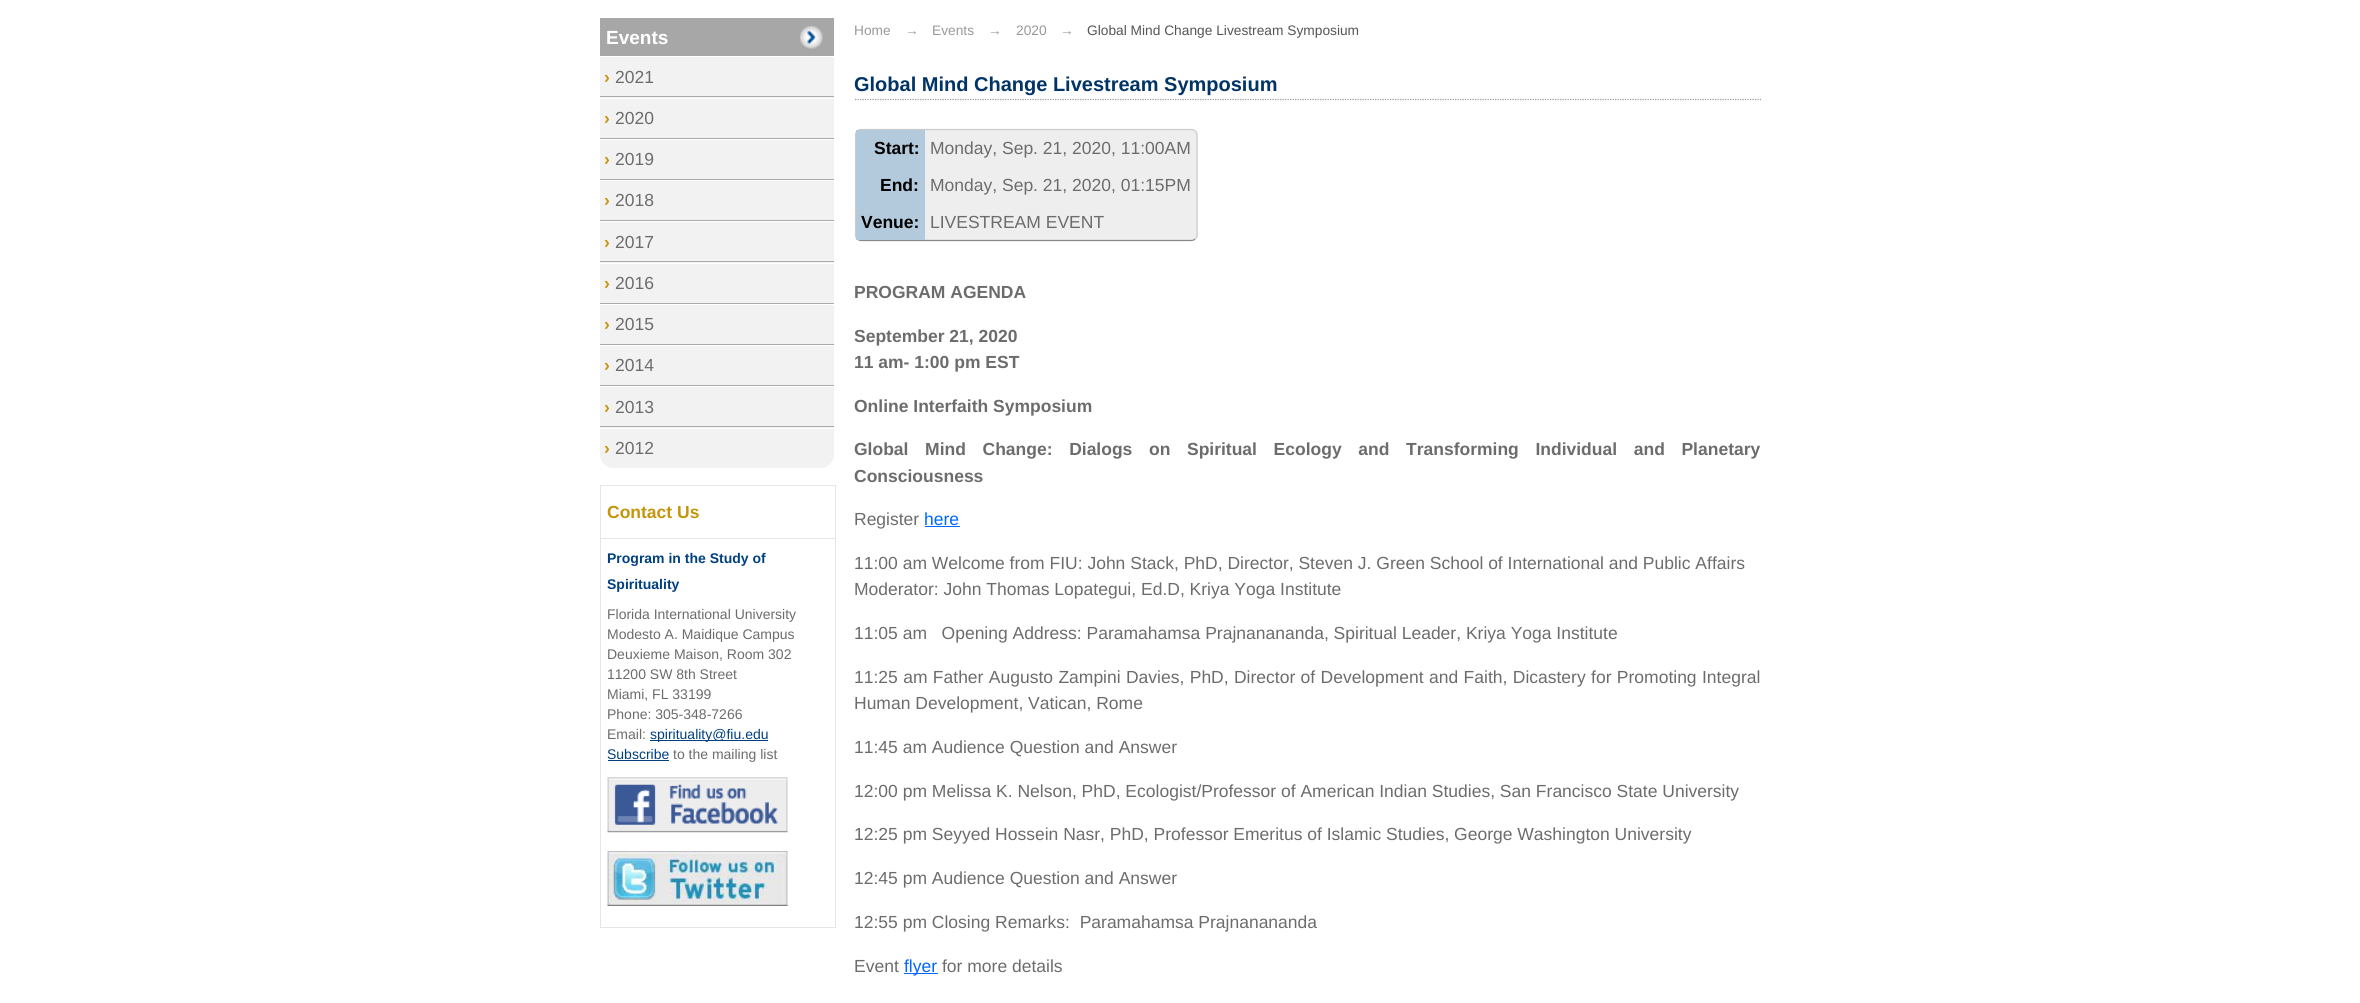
import math
import cairo

surface = cairo.ImageSurface(cairo.FORMAT_RGB24, 2360, 1003)
c = cairo.Context(surface)
options = cairo.FontOptions()
options.set_hint_metrics(cairo.HINT_METRICS_OFF)
options.set_hint_style(cairo.HINT_STYLE_NONE)
c.set_font_options(options)
c.set_miter_limit(4)
def C(code):
 c.set_source_rgb(*(v / 255 for v in bytes.fromhex(code[-6:])))
def F(family, size, italic, bold):
 c.select_font_face(family, cairo.FONT_SLANT_ITALIC if italic else cairo.FONT_SLANT_NORMAL, cairo.FONT_WEIGHT_BOLD if bold else cairo.FONT_WEIGHT_NORMAL)
 c.set_font_size(size)
def T(x, y, s):
 c.move_to(x, y)
 c.show_text(s)
def L(x, y, s, letter, word):
 c.move_to(x, y)
 for ch in s:
  c.show_text(ch)
  c.rel_move_to(letter + word * (ch == ' '), 0)
def R(x, y, w, h):
 c.rectangle(x, y, w, h)
 c.fill()
def Q(x, y, w, h, r):
 c.new_sub_path()
 for i, (u, v) in enumerate([(x + w - r, y + h - r), (x + r, y + h - r), (x + r, y + r), (x + w - r, y + r)]):
  c.arc(u, v, r, i * math.pi / 2, (i + 1) * math.pi / 2)
 c.close_path()
def I(path, x, y, w, h):
 c.save()
 c.set_source_surface(cairo.ImageSurface.create_from_png(path), x, y)
 c.rectangle(x, y, w, h)
 c.fill()
 c.restore()
C('ffffff')
c.paint()
C('a7a7a7')
R(600,18,234,38)
I('1.png',800,26,23,23)
F('Liberation Sans',19,0,1)
C('ffffff')
T(606,44,'Events')
C('f2f2f2')
c.new_path()
c.move_to(600,56)
c.line_to(834,56)
c.line_to(834,455)
c.curve_to(834,462,828,468,821,468)
c.line_to(613,468)
c.curve_to(606,468,600,462,600,455)
c.close_path()
c.fill()
C('ffffff')
R(600,56,234,1)
C('aaaaaa')
R(600,96,234,1)
F('Liberation Sans',17.5,0,1)
C('c5960c')
T(604,83,'›')
F('Liberation Sans',17.5,0,0)
C('6c6c6c')
T(615,83,'2021')
C('ffffff')
R(600,98,234,1)
C('aaaaaa')
R(600,138,234,1)
F('Liberation Sans',17.5,0,1)
C('c5960c')
T(604,124,'›')
F('Liberation Sans',17.5,0,0)
C('6c6c6c')
T(615,124,'2020')
C('ffffff')
R(600,139,234,1)
C('aaaaaa')
R(600,179,234,1)
F('Liberation Sans',17.5,0,1)
C('c5960c')
T(604,165,'›')
F('Liberation Sans',17.5,0,0)
C('6c6c6c')
T(615,165,'2019')
C('ffffff')
R(600,180,234,1)
C('aaaaaa')
R(600,220,234,1)
F('Liberation Sans',17.5,0,1)
C('c5960c')
T(604,206,'›')
F('Liberation Sans',17.5,0,0)
C('6c6c6c')
T(615,206,'2018')
C('ffffff')
R(600,221,234,1)
C('aaaaaa')
R(600,261,234,1)
F('Liberation Sans',17.5,0,1)
C('c5960c')
T(604,248,'›')
F('Liberation Sans',17.5,0,0)
C('6c6c6c')
T(615,248,'2017')
C('ffffff')
R(600,263,234,1)
C('aaaaaa')
R(600,303,234,1)
F('Liberation Sans',17.5,0,1)
C('c5960c')
T(604,289,'›')
F('Liberation Sans',17.5,0,0)
C('6c6c6c')
T(615,289,'2016')
C('ffffff')
R(600,304,234,1)
C('aaaaaa')
R(600,344,234,1)
F('Liberation Sans',17.5,0,1)
C('c5960c')
T(604,330,'›')
F('Liberation Sans',17.5,0,0)
C('6c6c6c')
T(615,330,'2015')
C('ffffff')
R(600,345,234,1)
C('aaaaaa')
R(600,385,234,1)
F('Liberation Sans',17.5,0,1)
C('c5960c')
T(604,371,'›')
F('Liberation Sans',17.5,0,0)
C('6c6c6c')
T(615,371,'2014')
C('ffffff')
R(600,386,234,1)
C('aaaaaa')
R(600,426,234,1)
F('Liberation Sans',17.5,0,1)
C('c5960c')
T(604,413,'›')
F('Liberation Sans',17.5,0,0)
C('6c6c6c')
T(615,413,'2013')
C('ffffff')
R(600,428,234,1)
F('Liberation Sans',17.5,0,1)
C('c5960c')
T(604,454,'›')
F('Liberation Sans',17.5,0,0)
C('6c6c6c')
T(615,454,'2012')
c.rectangle(600.5,485.5,235,442)
C('e6e6e6')
c.set_line_width(1)
c.stroke()
R(601,538,234,1)
F('Liberation Sans',17.5,0,1)
C('c5960c')
T(607,518,'Contact Us')
F('Liberation Sans',14,0,1)
C('004080')
T(607,563,'Program in the Study of')
T(607,589,'Spirituality')
F('Liberation Sans',14,0,0)
C('6c6c6c')
T(607,619,'Florida International University')
T(607,639,'Modesto A. Maidique Campus')
T(607,659,'Deuxieme Maison, Room 302')
T(607,679,'11200 SW 8th Street')
T(607,699,'Miami, FL 33199')
T(607,719,'Phone: 305-348-7266')
T(607,739,'Email:')
C('004080')
R(650,740,118,1)
T(650,739,'spirituality@fiu.edu')
T(607,759,'Subscribe')
R(608,760,61,1)
C('6c6c6c')
T(673,759,'to the mailing list')
I('2.png',607,777,181,56)
I('3.png',607,851,181,55)
F('Liberation Sans',13.75,0,0)
C('999999')
T(854,35,'Home')
T(905,35,'→')
T(932,35,'Events')
T(988,35,'→')
T(1016,35,'2020')
T(1060,35,'→')
C('555555')
T(1087,35,'Global Mind Change Livestream Symposium')
c.new_path()
c.move_to(855,99.5)
c.line_to(1761,99.5)
C('999999')
c.set_line_width(1.2)
c.set_dash([1.25,1.25])
c.stroke()
F('Liberation Sans',20,0,1)
C('003366')
T(854,91,'Global Mind Change Livestream Symposium')
C('eeeeee')
Q(855,129,343,112,6)
c.fill()
c.new_path()
c.move_to(1195,239)
c.curve_to(1194,240,1192.5,240.5,1191,240.5)
c.line_to(861,240.5)
c.curve_to(860,240.5,858.5,240,857.5,239)
C('888888')
c.set_dash([])
c.stroke()
c.new_path()
c.move_to(857.5,239)
c.curve_to(856,238,855.5,236.5,855.5,235)
c.line_to(855.5,135)
c.curve_to(855.5,133.5,856,132,857.5,131)
c.curve_to(858.5,130,860,129.5,861,129.5)
c.line_to(1191,129.5)
c.curve_to(1192.5,129.5,1194,130,1195,131)
c.curve_to(1196.5,132,1197,133.5,1197,135)
c.line_to(1197,235)
c.curve_to(1197,236.5,1196.5,238,1195,239)
C('cccccc')
c.stroke()
C('b3cadc')
R(856,130,69,110)
F('Liberation Sans',17.5,0,1)
C('000000')
T(874,154,'Start:')
F('Liberation Sans',17.5,0,0)
C('6c6c6c')
T(930,154,'Monday, Sep. 21, 2020, 11:00AM')
F('Liberation Sans',17.5,0,1)
C('000000')
T(880,191,'End:')
F('Liberation Sans',17.5,0,0)
C('6c6c6c')
T(930,191,'Monday, Sep. 21, 2020, 01:15PM')
F('Liberation Sans',17.5,0,1)
C('000000')
T(861,228,'Venue:')
F('Liberation Sans',17.5,0,0)
C('6c6c6c')
T(930,228,'LIVESTREAM EVENT')
F('Liberation Sans',17.5,0,1)
T(854,298,'PROGRAM AGENDA')
T(854,342,'September 21, 2020')
T(854,368,'11 am- 1:00 pm EST')
T(854,412,'Online Interfaith Symposium')
L(854,455,'Global Mind Change: Dialogs on Spiritual Ecology and Transforming Individual and Planetary',0,11.75)
T(854,482,'Consciousness')
F('Liberation Sans',17.5,0,0)
T(854,525,'Register')
C('0066ff')
T(924,525,'here')
R(925,526,35,1)
C('6c6c6c')
T(854,569,'11:00 am Welcome from FIU: John Stack, PhD, Director, Steven J. Green School of International and Public Affairs')
T(854,595,'Moderator: John Thomas Lopategui, Ed.D, Kriya Yoga Institute')
T(854,639,'11:05 am   Opening Address: Paramahamsa Prajnanananda, Spiritual Leader, Kriya Yoga Institute')
L(854,683,'11:25 am Father Augusto Zampini Davies, PhD, Director of Development and Faith, Dicastery for Promoting Integral',0,.5)
T(854,709,'Human Development, Vatican, Rome')
T(854,753,'11:45 am Audience Question and Answer')
T(854,797,'12:00 pm Melissa K. Nelson, PhD, Ecologist/Professor of American Indian Studies, San Francisco State University')
T(854,840,'12:25 pm Seyyed Hossein Nasr, PhD, Professor Emeritus of Islamic Studies, George Washington University')
T(854,884,'12:45 pm Audience Question and Answer')
T(854,928,'12:55 pm Closing Remarks:  Paramahamsa Prajnanananda')
T(854,972,'Event')
C('0066ff')
R(904,973,34,1)
T(904,972,'flyer')
C('6c6c6c')
T(942,972,'for more details')
surface.write_to_png('o.png')
